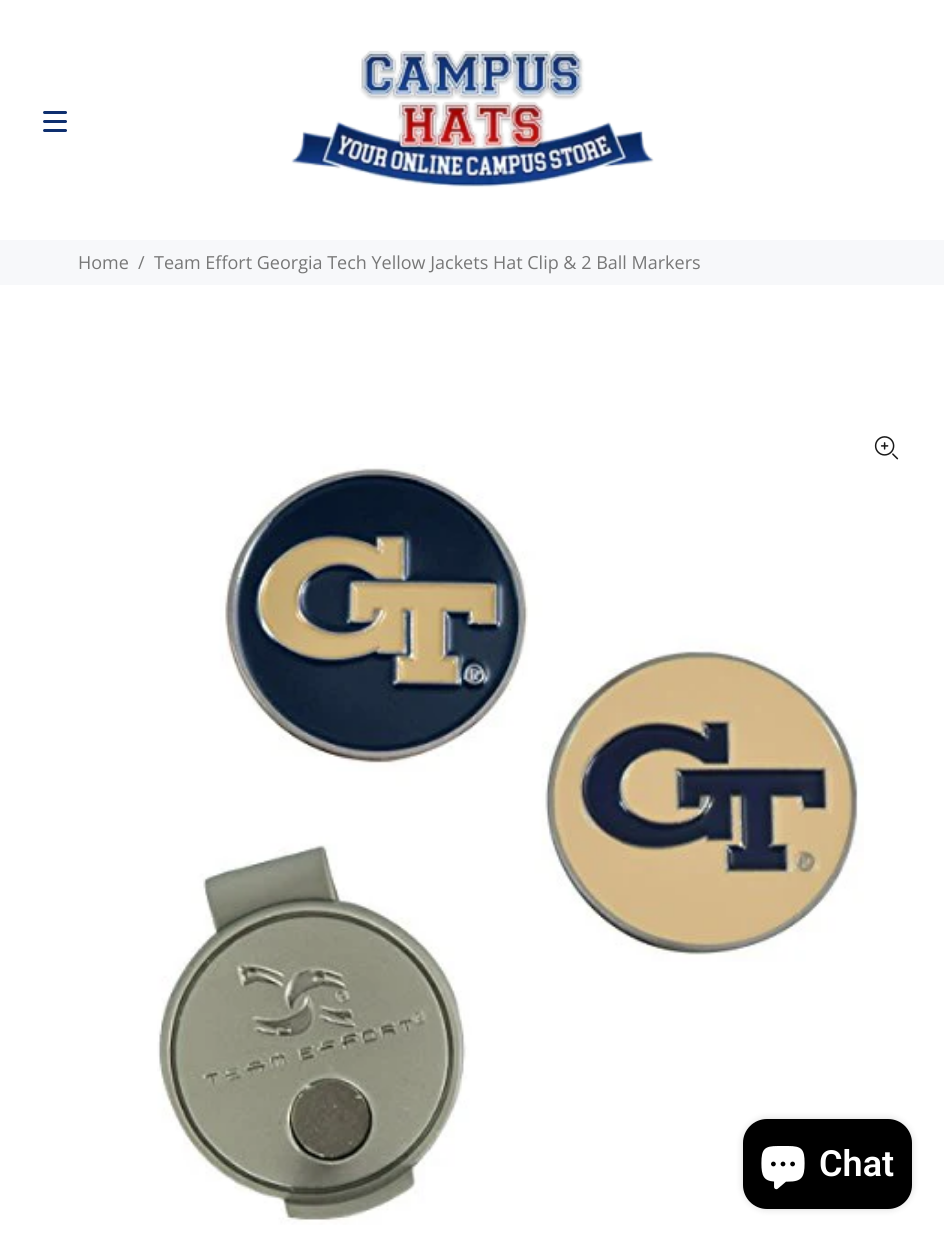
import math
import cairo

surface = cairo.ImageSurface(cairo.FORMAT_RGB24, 944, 1240)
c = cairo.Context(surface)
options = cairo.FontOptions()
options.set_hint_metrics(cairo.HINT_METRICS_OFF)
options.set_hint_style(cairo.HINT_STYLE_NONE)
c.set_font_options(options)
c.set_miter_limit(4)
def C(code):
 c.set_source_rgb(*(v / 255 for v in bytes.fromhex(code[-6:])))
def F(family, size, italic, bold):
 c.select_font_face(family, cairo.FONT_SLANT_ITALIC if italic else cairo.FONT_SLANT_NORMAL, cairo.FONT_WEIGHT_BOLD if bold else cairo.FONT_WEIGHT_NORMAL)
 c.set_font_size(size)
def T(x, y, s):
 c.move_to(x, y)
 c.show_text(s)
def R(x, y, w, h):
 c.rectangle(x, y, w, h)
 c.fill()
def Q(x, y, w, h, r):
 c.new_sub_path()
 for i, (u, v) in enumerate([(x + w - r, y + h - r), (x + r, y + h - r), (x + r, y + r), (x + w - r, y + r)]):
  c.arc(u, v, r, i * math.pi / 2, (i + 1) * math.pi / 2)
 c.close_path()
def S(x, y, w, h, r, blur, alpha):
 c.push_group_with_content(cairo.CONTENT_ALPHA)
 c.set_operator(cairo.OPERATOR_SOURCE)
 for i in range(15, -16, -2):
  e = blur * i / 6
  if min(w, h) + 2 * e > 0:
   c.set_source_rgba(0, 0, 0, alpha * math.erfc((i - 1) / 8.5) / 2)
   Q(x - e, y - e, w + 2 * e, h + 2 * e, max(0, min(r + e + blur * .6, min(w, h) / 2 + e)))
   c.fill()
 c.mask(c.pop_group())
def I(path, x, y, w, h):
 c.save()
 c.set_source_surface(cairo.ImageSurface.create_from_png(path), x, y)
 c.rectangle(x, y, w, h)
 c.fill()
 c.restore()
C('ffffff')
c.paint()
I('1.png',43,111,24,21)
I('2.png',291,50,363,138)
C('f7f8fa')
R(0,240,944,45)
F('Open Sans',18,0,0)
C('777777')
T(78,269,'Home')
T(138,269,'/')
T(154,269,'Team Effort Georgia Tech Yellow Jackets Hat Clip & 2 Ball Markers')
I('3.png',874,436,25,24)
I('4.png',157,464,707,761)
C('000000')
S(743,1119,169,90,24,4,.15)
C('000000')
Q(743,1119,169,90,24)
c.fill()
I('5.png',761,1146,44,44)
F('Roboto SemiBold',36,0,0)
C('ffffff')
T(819,1176,'Chat')
surface.write_to_png('o.png')
